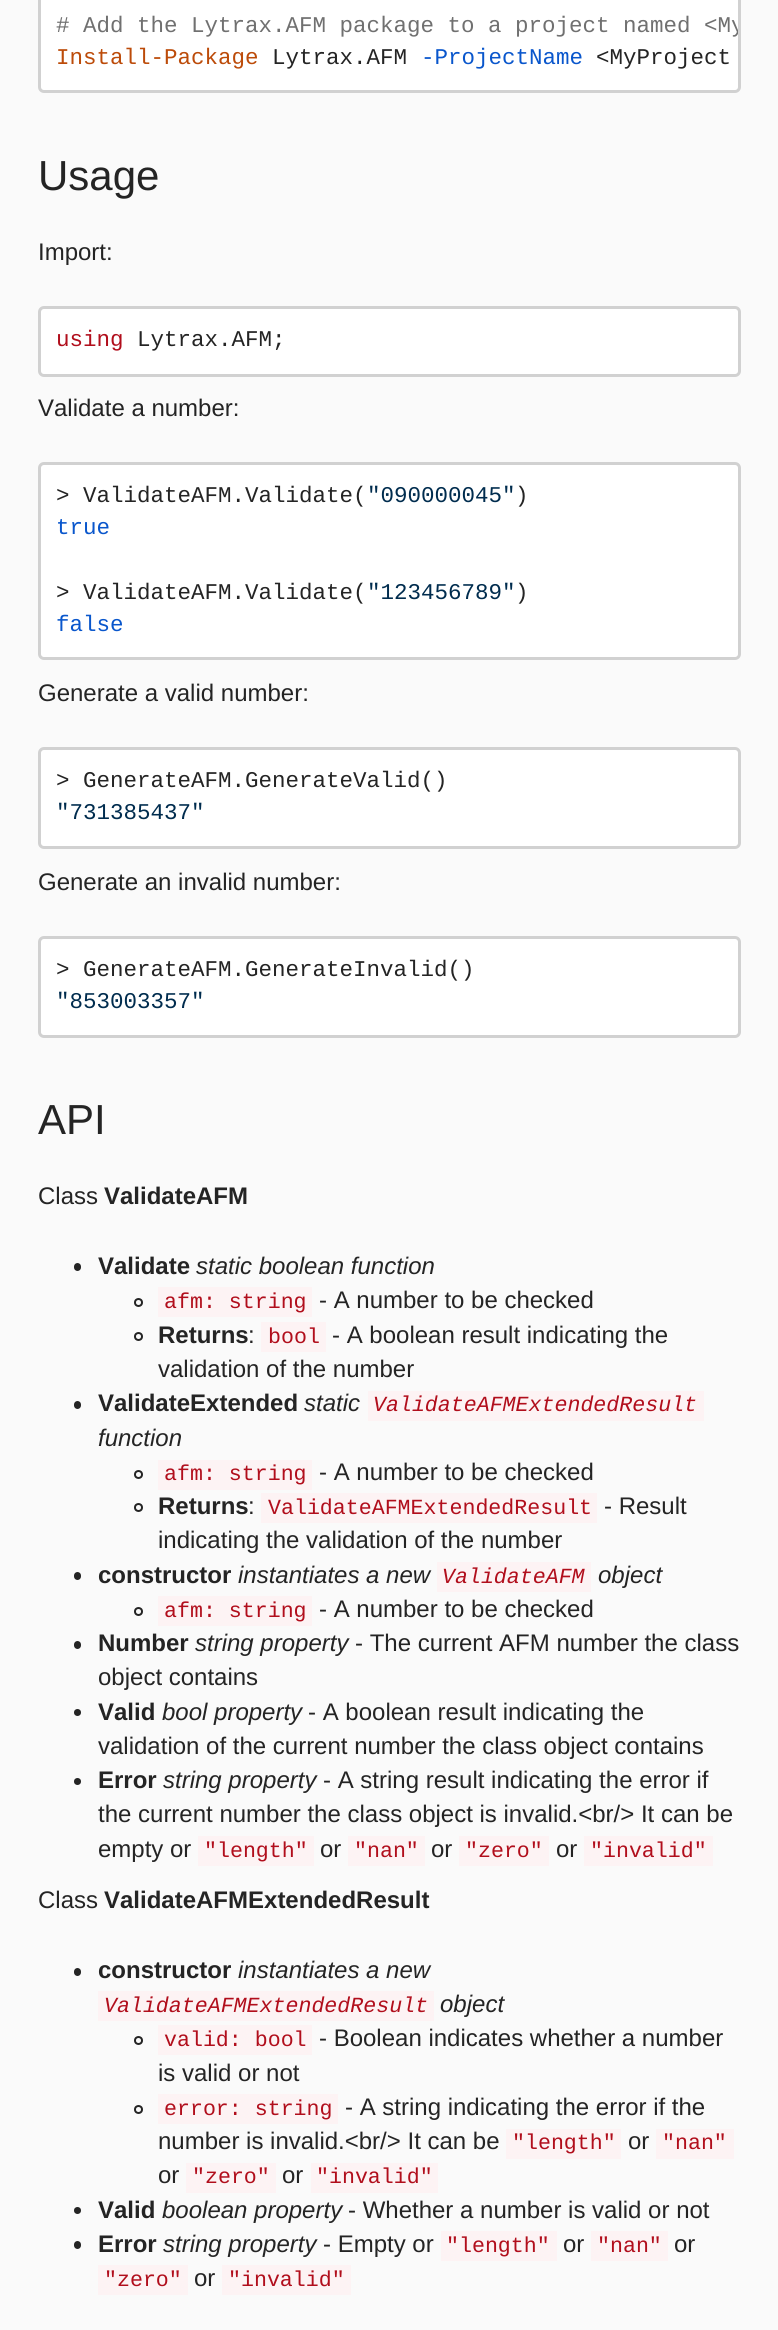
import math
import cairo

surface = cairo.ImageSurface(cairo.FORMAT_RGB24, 778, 2330)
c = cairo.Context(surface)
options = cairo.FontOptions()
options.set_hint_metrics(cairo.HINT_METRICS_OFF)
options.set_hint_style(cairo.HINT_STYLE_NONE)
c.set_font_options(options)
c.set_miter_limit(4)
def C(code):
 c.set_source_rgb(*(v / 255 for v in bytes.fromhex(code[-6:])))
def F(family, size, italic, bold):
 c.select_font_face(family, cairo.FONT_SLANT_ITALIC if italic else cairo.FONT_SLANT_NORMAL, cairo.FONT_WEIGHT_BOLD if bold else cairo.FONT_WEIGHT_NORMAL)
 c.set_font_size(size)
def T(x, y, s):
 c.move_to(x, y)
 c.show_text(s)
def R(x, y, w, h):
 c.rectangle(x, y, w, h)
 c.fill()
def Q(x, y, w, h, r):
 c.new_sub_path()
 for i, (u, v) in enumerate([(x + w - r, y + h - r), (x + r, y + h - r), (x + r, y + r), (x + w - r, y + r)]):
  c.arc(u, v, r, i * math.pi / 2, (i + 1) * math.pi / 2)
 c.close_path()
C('fafafa')
c.paint()
C('ffffff')
Q(39.5,-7.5,700,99,4.5)
c.fill_preserve()
C('d1d1d1')
c.set_line_width(3)
c.stroke()
c.save()
Q(41,-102,697,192,3)
c.clip()
F('Liberation Mono',22.5,0,0)
C('707070')
T(56,32,'# Add the Lytrax.AFM package to a project named <My')
c.restore()
F('Liberation Mono',22.5,0,0)
C('bc4b09')
T(56,64,'Install-Package')
C('242424')
T(272,64,'Lytrax.AFM')
C('0956cc')
T(421,64,'-ProjectName')
C('242424')
T(596,64,'<MyProject')
F('Liberation Sans',42,0,0)
T(38,190,'Usage')
F('Liberation Sans',24,0,0)
T(38,260,'Import:')
C('ffffff')
Q(39.5,307.5,700,68,4.5)
c.fill_preserve()
C('d1d1d1')
c.stroke()
F('Liberation Mono',22.5,0,0)
C('b10e1c')
T(56,346,'using')
C('242424')
T(137,346,'Lytrax.AFM;')
F('Liberation Sans',24,0,0)
T(38,416,'Validate a number:')
C('ffffff')
Q(39.5,463.5,700,195,4.5)
c.fill_preserve()
C('d1d1d1')
c.stroke()
F('Liberation Mono',22.5,0,0)
C('242424')
T(56,502,'> ValidateAFM.Validate(')
C('002c4e')
T(367,502,'"090000045"')
C('242424')
T(515,502,')')
C('0956cc')
T(56,534,'true')
C('242424')
T(56,599,'> ValidateAFM.Validate(')
C('002c4e')
T(367,599,'"123456789"')
C('242424')
T(515,599,')')
C('0956cc')
T(56,631,'false')
F('Liberation Sans',24,0,0)
C('242424')
T(38,701,'Generate a valid number:')
C('ffffff')
Q(39.5,748.5,700,99,4.5)
c.fill_preserve()
C('d1d1d1')
c.stroke()
F('Liberation Mono',22.5,0,0)
C('242424')
T(56,787,'> GenerateAFM.GenerateValid()')
C('002c4e')
T(56,819,'"731385437"')
F('Liberation Sans',24,0,0)
C('242424')
T(38,890,'Generate an invalid number:')
C('ffffff')
Q(39.5,937.5,700,99,4.5)
c.fill_preserve()
C('d1d1d1')
c.stroke()
F('Liberation Mono',22.5,0,0)
C('242424')
T(56,976,'> GenerateAFM.GenerateInvalid()')
C('002c4e')
T(56,1008,'"853003357"')
F('Liberation Sans',42,0,0)
C('242424')
T(38,1134,'API')
F('Liberation Sans',24,0,0)
T(38,1204,'Class')
F('Liberation Sans',24,0,1)
T(104,1204,'ValidateAFM')
Q(74,1263,7,8,3.5)
c.fill()
T(98,1274,'Validate')
F('Liberation Sans',24,1,0)
T(196,1274,'static boolean function')
c.new_path()
c.arc(138.5,1302.5,3.5,0,2 * math.pi)
c.set_line_width(2)
c.stroke()
C('fdf3f4')
R(158,1287,154,30)
F('Liberation Mono',21.6,0,0)
C('b10e1c')
T(164,1308,'afm: string')
F('Liberation Sans',24,0,0)
C('242424')
T(319,1308,'- A number to be checked')
c.new_path()
c.arc(138.5,1336.5,3.5,0,2 * math.pi)
c.stroke()
F('Liberation Sans',24,0,1)
T(158,1343,'Returns')
F('Liberation Sans',24,0,0)
T(248,1343,':')
C('fdf3f4')
R(261,1322,65,30)
F('Liberation Mono',21.6,0,0)
C('b10e1c')
T(268,1343,'bool')
F('Liberation Sans',24,0,0)
C('242424')
T(332,1343,'- A boolean result indicating the')
T(158,1377,'validation of the number')
Q(74,1401,7,8,3.5)
c.fill()
F('Liberation Sans',24,0,1)
T(98,1411,'ValidateExtended')
F('Liberation Sans',24,1,0)
T(304,1411,'static')
C('fdf3f4')
R(368,1391,336,30)
F('Liberation Mono',21.6,1,0)
C('b10e1c')
T(373,1411,'ValidateAFMExtendedResult')
F('Liberation Sans',24,1,0)
C('242424')
T(98,1446,'function')
c.new_path()
c.arc(138.5,1474.5,3.5,0,2 * math.pi)
c.stroke()
C('fdf3f4')
R(158,1460,154,30)
F('Liberation Mono',21.6,0,0)
C('b10e1c')
T(164,1480,'afm: string')
F('Liberation Sans',24,0,0)
C('242424')
T(319,1480,'- A number to be checked')
c.new_path()
c.arc(138.5,1507.5,3.5,0,2 * math.pi)
c.stroke()
F('Liberation Sans',24,0,1)
T(158,1514,'Returns')
F('Liberation Sans',24,0,0)
T(248,1514,':')
C('fdf3f4')
R(261,1493,336,30)
F('Liberation Mono',21.6,0,0)
C('b10e1c')
T(268,1514,'ValidateAFMExtendedResult')
F('Liberation Sans',24,0,0)
C('242424')
T(604,1514,'- Result')
T(158,1548,'indicating the validation of the number')
Q(74,1572,7,8,3.5)
c.fill()
F('Liberation Sans',24,0,1)
T(98,1583,'constructor')
F('Liberation Sans',24,1,0)
T(238,1583,'instantiates a new')
C('fdf3f4')
R(437,1562,154,30)
F('Liberation Mono',21.6,1,0)
C('b10e1c')
T(442,1583,'ValidateAFM')
F('Liberation Sans',24,1,0)
C('242424')
T(598,1583,'object')
c.new_path()
c.arc(138.5,1611.5,3.5,0,2 * math.pi)
c.stroke()
C('fdf3f4')
R(158,1596,154,30)
F('Liberation Mono',21.6,0,0)
C('b10e1c')
T(164,1617,'afm: string')
F('Liberation Sans',24,0,0)
C('242424')
T(319,1617,'- A number to be checked')
Q(74,1641,7,8,3.5)
c.fill()
F('Liberation Sans',24,0,1)
T(98,1651,'Number')
F('Liberation Sans',24,1,0)
T(195,1651,'string property')
F('Liberation Sans',24,0,0)
T(355,1651,'- The current AFM number the class')
T(98,1685,'object contains')
c.new_path()
c.arc(77.5,1712.5,3.5,0,2 * math.pi)
c.fill()
F('Liberation Sans',24,0,1)
T(98,1720,'Valid')
F('Liberation Sans',24,1,0)
T(162,1720,'bool property')
F('Liberation Sans',24,0,0)
T(308,1720,'- A boolean result indicating the')
T(98,1754,'validation of the current number the class object contains')
c.new_path()
c.arc(77.5,1781.5,3.5,0,2 * math.pi)
c.fill()
F('Liberation Sans',24,0,1)
T(98,1788,'Error')
F('Liberation Sans',24,1,0)
T(163,1788,'string property')
F('Liberation Sans',24,0,0)
T(323,1788,'- A string result indicating the error if')
T(98,1822,'the current number the class object is invalid.<br/> It can be')
T(98,1857,'empty or')
C('fdf3f4')
R(198,1836,116,30)
F('Liberation Mono',21.6,0,0)
C('b10e1c')
T(204,1857,'"length"')
F('Liberation Sans',24,0,0)
C('242424')
T(320,1857,'or')
C('fdf3f4')
R(348,1836,77,30)
F('Liberation Mono',21.6,0,0)
C('b10e1c')
T(354,1857,'"nan"')
F('Liberation Sans',24,0,0)
C('242424')
T(431,1857,'or')
C('fdf3f4')
R(459,1836,90,30)
F('Liberation Mono',21.6,0,0)
C('b10e1c')
T(465,1857,'"zero"')
F('Liberation Sans',24,0,0)
C('242424')
T(556,1857,'or')
C('fdf3f4')
R(584,1836,129,30)
F('Liberation Mono',21.6,0,0)
C('b10e1c')
T(590,1857,'"invalid"')
F('Liberation Sans',24,0,0)
C('242424')
T(38,1908,'Class')
F('Liberation Sans',24,0,1)
T(104,1908,'ValidateAFMExtendedResult')
Q(74,1968,7,8,3.5)
c.fill()
T(98,1978,'constructor')
F('Liberation Sans',24,1,0)
T(238,1978,'instantiates a new')
C('fdf3f4')
R(98,1991,336,30)
F('Liberation Mono',21.6,1,0)
C('b10e1c')
T(104,2012,'ValidateAFMExtendedResult')
F('Liberation Sans',24,1,0)
C('242424')
T(440,2012,'object')
c.new_path()
c.arc(138.5,2040.5,3.5,0,2 * math.pi)
c.stroke()
C('fdf3f4')
R(158,2025,154,30)
F('Liberation Mono',21.6,0,0)
C('b10e1c')
T(164,2046,'valid: bool')
F('Liberation Sans',24,0,0)
C('242424')
T(319,2046,'- Boolean indicates whether a number')
T(158,2081,'is valid or not')
c.new_path()
c.arc(138.5,2109.5,3.5,0,2 * math.pi)
c.stroke()
C('fdf3f4')
R(158,2094,180,30)
F('Liberation Mono',21.6,0,0)
C('b10e1c')
T(164,2115,'error: string')
F('Liberation Sans',24,0,0)
C('242424')
T(345,2115,'- A string indicating the error if the')
T(158,2149,'number is invalid.<br/> It can be')
C('fdf3f4')
R(506,2129,115,30)
F('Liberation Mono',21.6,0,0)
C('b10e1c')
T(512,2149,'"length"')
F('Liberation Sans',24,0,0)
C('242424')
T(628,2149,'or')
C('fdf3f4')
R(656,2129,78,30)
F('Liberation Mono',21.6,0,0)
C('b10e1c')
T(662,2149,'"nan"')
F('Liberation Sans',24,0,0)
C('242424')
T(158,2183,'or')
C('fdf3f4')
R(186,2163,90,30)
F('Liberation Mono',21.6,0,0)
C('b10e1c')
T(192,2183,'"zero"')
F('Liberation Sans',24,0,0)
C('242424')
T(282,2183,'or')
C('fdf3f4')
R(311,2163,127,30)
F('Liberation Mono',21.6,0,0)
C('b10e1c')
T(316,2183,'"invalid"')
C('242424')
c.new_path()
c.arc(77.5,2210.5,3.5,0,2 * math.pi)
c.fill()
F('Liberation Sans',24,0,1)
T(98,2218,'Valid')
F('Liberation Sans',24,1,0)
T(162,2218,'boolean property')
F('Liberation Sans',24,0,0)
T(348,2218,'- Whether a number is valid or not')
Q(74,2241,7,8,3.5)
c.fill()
F('Liberation Sans',24,0,1)
T(98,2252,'Error')
F('Liberation Sans',24,1,0)
T(163,2252,'string property')
F('Liberation Sans',24,0,0)
T(323,2252,'- Empty or')
C('fdf3f4')
R(441,2231,116,30)
F('Liberation Mono',21.6,0,0)
C('b10e1c')
T(446,2252,'"length"')
F('Liberation Sans',24,0,0)
C('242424')
T(563,2252,'or')
C('fdf3f4')
R(591,2231,77,30)
F('Liberation Mono',21.6,0,0)
C('b10e1c')
T(597,2252,'"nan"')
F('Liberation Sans',24,0,0)
C('242424')
T(674,2252,'or')
C('fdf3f4')
R(98,2265,90,30)
F('Liberation Mono',21.6,0,0)
C('b10e1c')
T(104,2286,'"zero"')
F('Liberation Sans',24,0,0)
C('242424')
T(194,2286,'or')
C('fdf3f4')
R(222,2265,129,30)
F('Liberation Mono',21.6,0,0)
C('b10e1c')
T(228,2286,'"invalid"')
surface.write_to_png('o.png')
